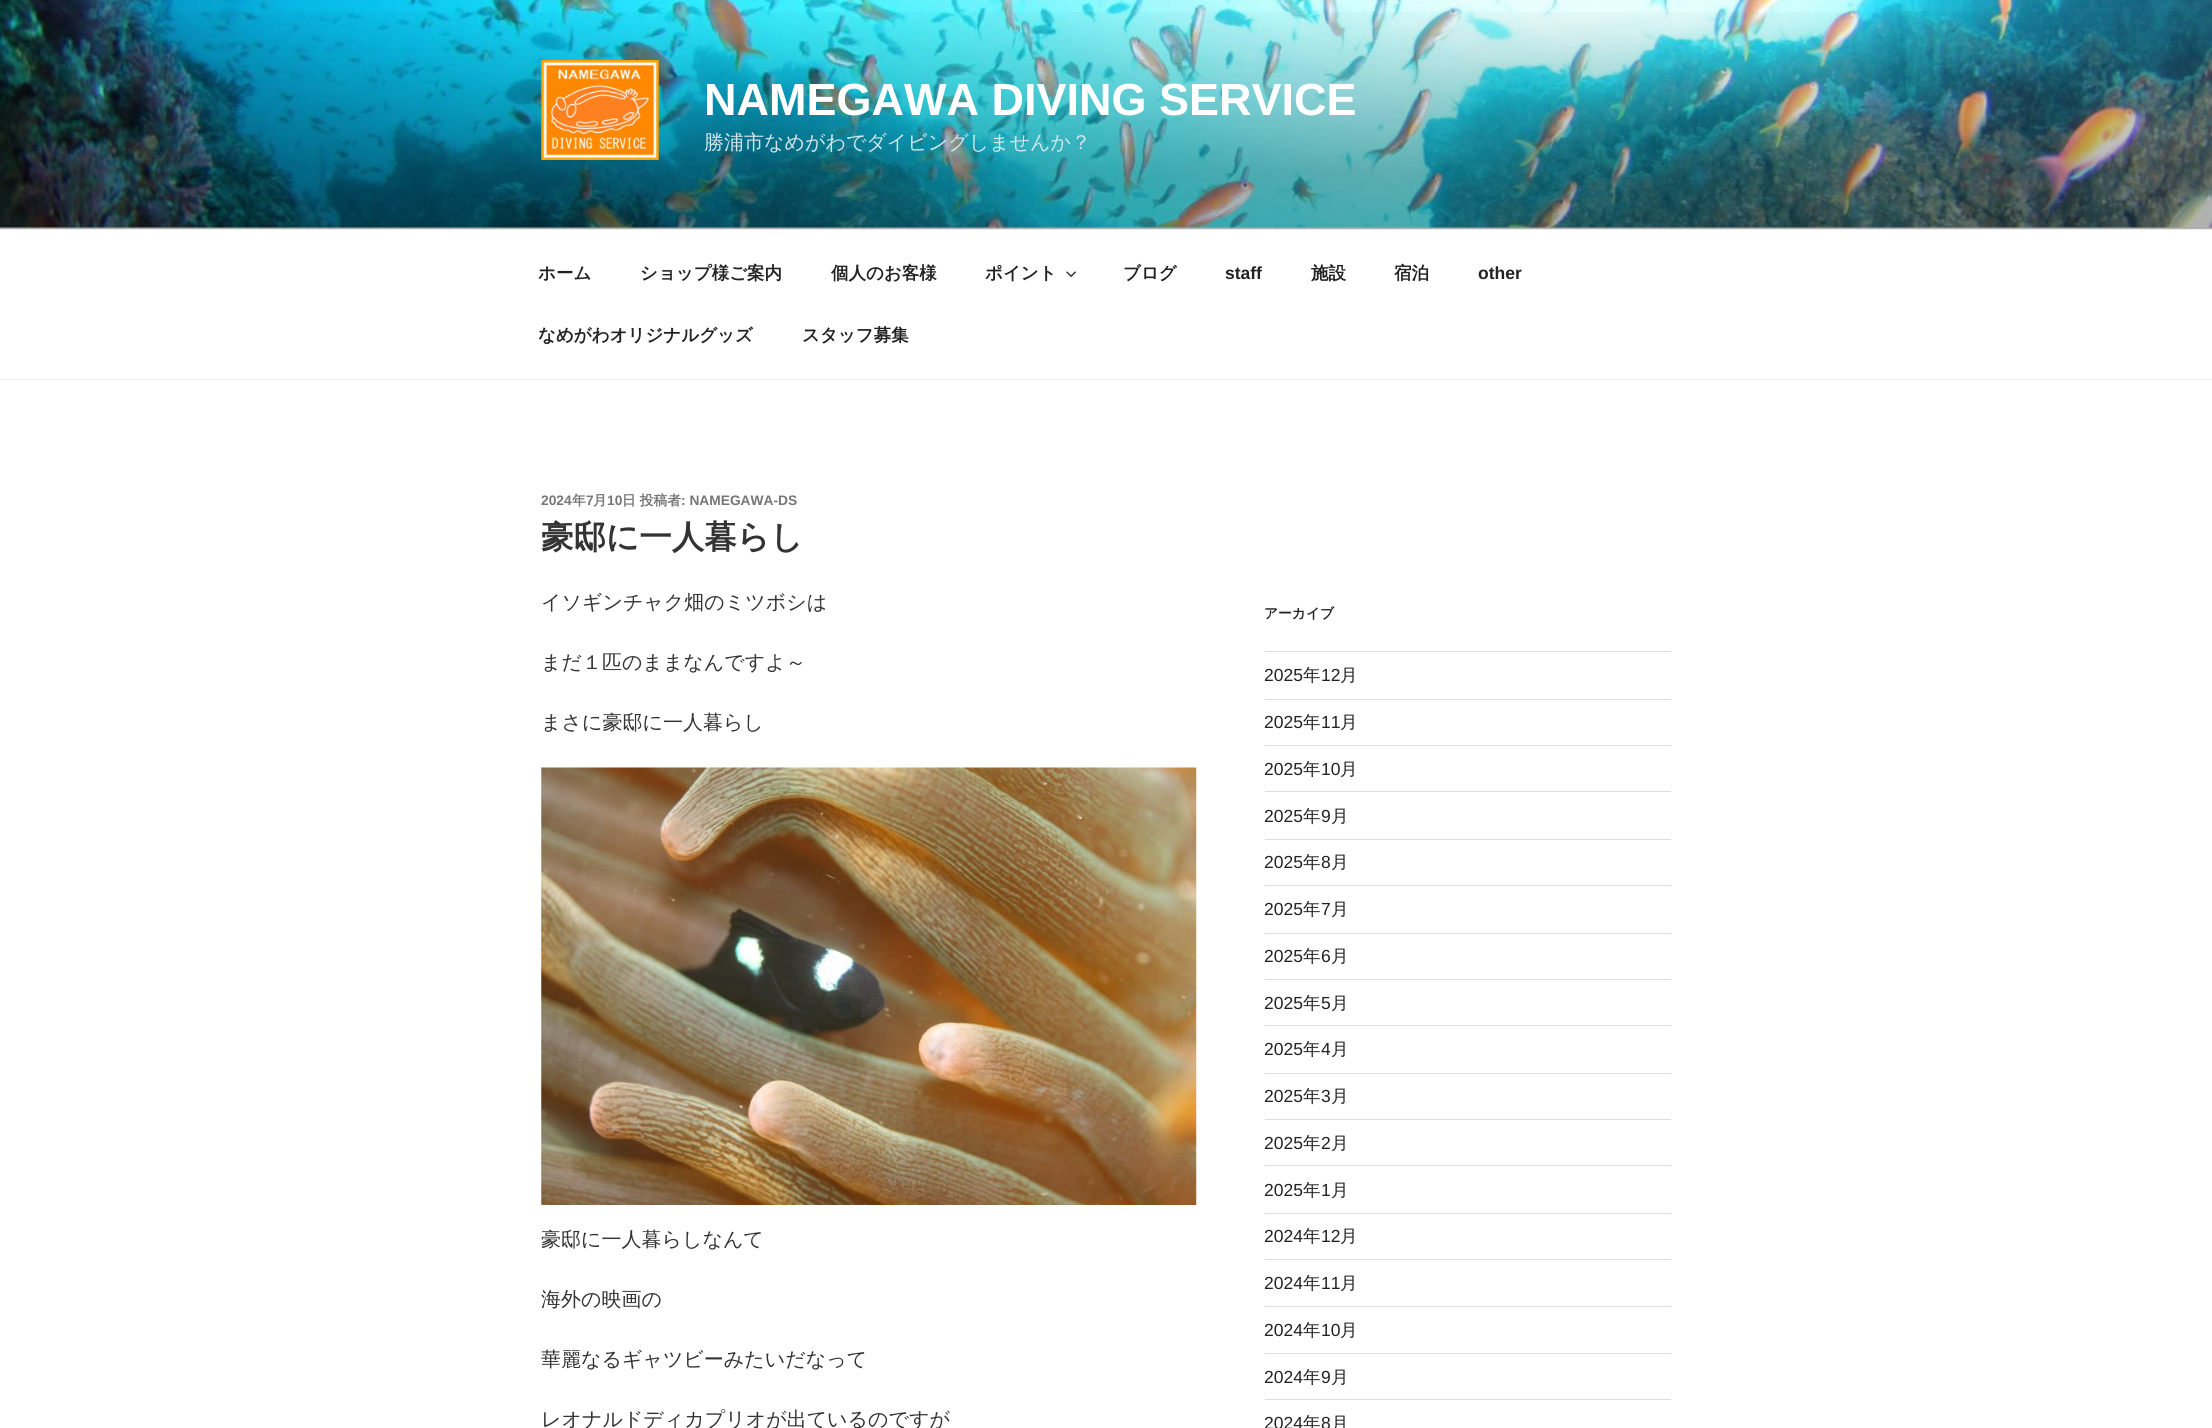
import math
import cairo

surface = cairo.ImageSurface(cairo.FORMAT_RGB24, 2212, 1428)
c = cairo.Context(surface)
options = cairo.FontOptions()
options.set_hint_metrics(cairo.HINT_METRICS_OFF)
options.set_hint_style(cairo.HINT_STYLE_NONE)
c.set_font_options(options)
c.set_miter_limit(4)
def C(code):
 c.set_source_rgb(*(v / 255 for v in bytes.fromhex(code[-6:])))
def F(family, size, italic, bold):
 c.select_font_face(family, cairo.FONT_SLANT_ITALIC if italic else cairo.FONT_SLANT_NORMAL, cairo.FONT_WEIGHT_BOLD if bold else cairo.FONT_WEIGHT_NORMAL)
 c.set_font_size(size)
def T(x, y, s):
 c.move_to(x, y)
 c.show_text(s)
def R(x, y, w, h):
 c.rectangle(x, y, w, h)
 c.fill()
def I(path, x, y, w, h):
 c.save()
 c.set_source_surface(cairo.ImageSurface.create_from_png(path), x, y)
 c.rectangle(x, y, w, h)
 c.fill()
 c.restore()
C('ffffff')
c.paint()
C('fafafa')
R(0,227,2212,2)
I('1.png',0,0,2212,228)
gradient = cairo.LinearGradient(1106,0,1106,229)
gradient.add_color_stop_rgba(0,0,0,0,0)
gradient.add_color_stop_rgba(.75,0,0,0,.3)
gradient.add_color_stop_rgba(1,0,0,0,.3)
c.set_source(gradient)
R(0,12,2212,217)
I('2.png',541,60,118,100)
F('Liberation Sans',45,0,1)
C('ffffff')
T(704,115,'NAMEGAWA DIVING SERVICE')
F('WenQuanYi Zen Hei Medium',20,0,0)
C('d1e7eb')
T(704,149,'勝浦市なめがわでダイビングしませんか？')
C('eeeeee')
R(0,229,2212,1)
R(0,379,2212,1)
F('WenQuanYi Zen Hei',17.5,0,1)
C('222222')
T(538,279,'ホーム')
T(640,279,'ショップ様ご案内')
T(831,279,'個人のお客様')
T(985,279,'ポイント')
I('3.png',1066,271,10,6)
T(1123,279,'ブログ')
F('Liberation Sans',17.5,0,1)
T(1225,279,'staff')
F('WenQuanYi Zen Hei',17.5,0,1)
T(1311,279,'施設')
T(1394,279,'宿泊')
F('Liberation Sans',17.5,0,1)
T(1478,279,'other')
F('WenQuanYi Zen Hei',17.5,0,1)
T(538,341,'なめがわオリジナルグッズ')
T(802,341,'スタッフ募集')
F('Liberation Sans',13.75,0,1)
C('767676')
T(541,505,'2024')
F('WenQuanYi Zen Hei',13.75,0,1)
T(572,505,'年')
F('Liberation Sans',13.75,0,1)
T(586,505,'7')
F('WenQuanYi Zen Hei',13.75,0,1)
T(593,505,'月')
F('Liberation Sans',13.75,0,1)
T(607,505,'10')
F('WenQuanYi Zen Hei',13.75,0,1)
T(622,505,'日 投稿者')
F('Liberation Sans',13.75,0,1)
T(681,505,': NAMEGAWA-DS')
F('WenQuanYi Zen Hei',32.5,0,1)
C('333333')
T(541,548,'豪邸に一人暮らし')
F('WenQuanYi Zen Hei Medium',20,0,0)
T(541,609,'イソギンチャク畑のミツボシは')
T(541,669,'まだ１匹のままなんですよ～')
T(541,729,'まさに豪邸に一人暮らし')
I('4.png',541,767,656,438)
T(541,1246,'豪邸に一人暮らしなんて')
T(541,1306,'海外の映画の')
T(541,1366,'華麗なるギャツビーみたいだなって')
T(541,1426,'レオナルドディカプリオが出ているのですが')
F('WenQuanYi Zen Hei',13.75,0,1)
C('222222')
T(1264,618,'アーカイブ')
C('dddddd')
R(1265,651,406,1)
R(1265,699,406,1)
F('Liberation Sans',17.5,0,0)
C('222222')
T(1264,681,'2025')
F('WenQuanYi Zen Hei Medium',17.5,0,0)
T(1303,681,'年')
F('Liberation Sans',17.5,0,0)
T(1321,681,'12')
F('WenQuanYi Zen Hei Medium',17.5,0,0)
T(1340,681,'月')
C('dddddd')
R(1265,745,406,1)
F('Liberation Sans',17.5,0,0)
C('222222')
T(1264,728,'2025')
F('WenQuanYi Zen Hei Medium',17.5,0,0)
T(1303,728,'年')
F('Liberation Sans',17.5,0,0)
T(1321,728,'11')
F('WenQuanYi Zen Hei Medium',17.5,0,0)
T(1340,728,'月')
C('dddddd')
R(1265,791,406,1)
F('Liberation Sans',17.5,0,0)
C('222222')
T(1264,775,'2025')
F('WenQuanYi Zen Hei Medium',17.5,0,0)
T(1303,775,'年')
F('Liberation Sans',17.5,0,0)
T(1321,775,'10')
F('WenQuanYi Zen Hei Medium',17.5,0,0)
T(1340,775,'月')
C('dddddd')
R(1265,839,406,1)
F('Liberation Sans',17.5,0,0)
C('222222')
T(1264,822,'2025')
F('WenQuanYi Zen Hei Medium',17.5,0,0)
T(1303,822,'年')
F('Liberation Sans',17.5,0,0)
T(1321,822,'9')
F('WenQuanYi Zen Hei Medium',17.5,0,0)
T(1331,822,'月')
C('dddddd')
R(1265,885,406,1)
F('Liberation Sans',17.5,0,0)
C('222222')
T(1264,868,'2025')
F('WenQuanYi Zen Hei Medium',17.5,0,0)
T(1303,868,'年')
F('Liberation Sans',17.5,0,0)
T(1321,868,'8')
F('WenQuanYi Zen Hei Medium',17.5,0,0)
T(1331,868,'月')
C('dddddd')
R(1265,933,406,1)
F('Liberation Sans',17.5,0,0)
C('222222')
T(1264,915,'2025')
F('WenQuanYi Zen Hei Medium',17.5,0,0)
T(1303,915,'年')
F('Liberation Sans',17.5,0,0)
T(1321,915,'7')
F('WenQuanYi Zen Hei Medium',17.5,0,0)
T(1331,915,'月')
C('dddddd')
R(1265,979,406,1)
F('Liberation Sans',17.5,0,0)
C('222222')
T(1264,962,'2025')
F('WenQuanYi Zen Hei Medium',17.5,0,0)
T(1303,962,'年')
F('Liberation Sans',17.5,0,0)
T(1321,962,'6')
F('WenQuanYi Zen Hei Medium',17.5,0,0)
T(1331,962,'月')
C('dddddd')
R(1265,1025,406,1)
F('Liberation Sans',17.5,0,0)
C('222222')
T(1264,1009,'2025')
F('WenQuanYi Zen Hei Medium',17.5,0,0)
T(1303,1009,'年')
F('Liberation Sans',17.5,0,0)
T(1321,1009,'5')
F('WenQuanYi Zen Hei Medium',17.5,0,0)
T(1331,1009,'月')
C('dddddd')
R(1265,1073,406,1)
F('Liberation Sans',17.5,0,0)
C('222222')
T(1264,1055,'2025')
F('WenQuanYi Zen Hei Medium',17.5,0,0)
T(1303,1055,'年')
F('Liberation Sans',17.5,0,0)
T(1321,1055,'4')
F('WenQuanYi Zen Hei Medium',17.5,0,0)
T(1331,1055,'月')
C('dddddd')
R(1265,1119,406,1)
F('Liberation Sans',17.5,0,0)
C('222222')
T(1264,1102,'2025')
F('WenQuanYi Zen Hei Medium',17.5,0,0)
T(1303,1102,'年')
F('Liberation Sans',17.5,0,0)
T(1321,1102,'3')
F('WenQuanYi Zen Hei Medium',17.5,0,0)
T(1331,1102,'月')
C('dddddd')
R(1265,1165,406,1)
F('Liberation Sans',17.5,0,0)
C('222222')
T(1264,1149,'2025')
F('WenQuanYi Zen Hei Medium',17.5,0,0)
T(1303,1149,'年')
F('Liberation Sans',17.5,0,0)
T(1321,1149,'2')
F('WenQuanYi Zen Hei Medium',17.5,0,0)
T(1331,1149,'月')
C('dddddd')
R(1265,1213,406,1)
F('Liberation Sans',17.5,0,0)
C('222222')
T(1264,1196,'2025')
F('WenQuanYi Zen Hei Medium',17.5,0,0)
T(1303,1196,'年')
F('Liberation Sans',17.5,0,0)
T(1321,1196,'1')
F('WenQuanYi Zen Hei Medium',17.5,0,0)
T(1331,1196,'月')
C('dddddd')
R(1265,1259,406,1)
F('Liberation Sans',17.5,0,0)
C('222222')
T(1264,1242,'2024')
F('WenQuanYi Zen Hei Medium',17.5,0,0)
T(1303,1242,'年')
F('Liberation Sans',17.5,0,0)
T(1321,1242,'12')
F('WenQuanYi Zen Hei Medium',17.5,0,0)
T(1340,1242,'月')
C('dddddd')
R(1265,1306,406,1)
F('Liberation Sans',17.5,0,0)
C('222222')
T(1264,1289,'2024')
F('WenQuanYi Zen Hei Medium',17.5,0,0)
T(1303,1289,'年')
F('Liberation Sans',17.5,0,0)
T(1321,1289,'11')
F('WenQuanYi Zen Hei Medium',17.5,0,0)
T(1340,1289,'月')
C('dddddd')
R(1265,1353,406,1)
F('Liberation Sans',17.5,0,0)
C('222222')
T(1264,1336,'2024')
F('WenQuanYi Zen Hei Medium',17.5,0,0)
T(1303,1336,'年')
F('Liberation Sans',17.5,0,0)
T(1321,1336,'10')
F('WenQuanYi Zen Hei Medium',17.5,0,0)
T(1340,1336,'月')
C('dddddd')
R(1265,1399,406,1)
F('Liberation Sans',17.5,0,0)
C('222222')
T(1264,1383,'2024')
F('WenQuanYi Zen Hei Medium',17.5,0,0)
T(1303,1383,'年')
F('Liberation Sans',17.5,0,0)
T(1321,1383,'9')
F('WenQuanYi Zen Hei Medium',17.5,0,0)
T(1331,1383,'月')
F('Liberation Sans',17.5,0,0)
T(1264,1429,'2024')
F('WenQuanYi Zen Hei Medium',17.5,0,0)
T(1303,1429,'年')
F('Liberation Sans',17.5,0,0)
T(1321,1429,'8')
F('WenQuanYi Zen Hei Medium',17.5,0,0)
T(1331,1429,'月')
surface.write_to_png('o.png')
